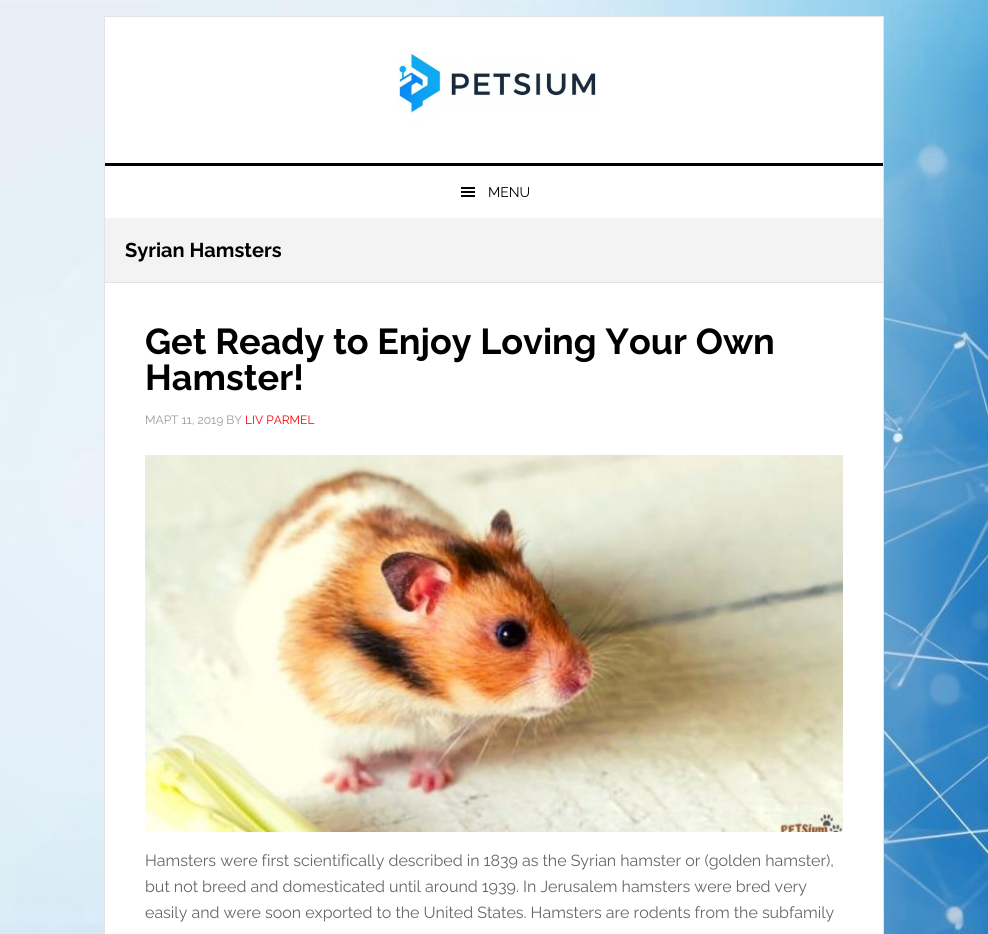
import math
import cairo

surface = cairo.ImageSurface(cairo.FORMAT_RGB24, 988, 934)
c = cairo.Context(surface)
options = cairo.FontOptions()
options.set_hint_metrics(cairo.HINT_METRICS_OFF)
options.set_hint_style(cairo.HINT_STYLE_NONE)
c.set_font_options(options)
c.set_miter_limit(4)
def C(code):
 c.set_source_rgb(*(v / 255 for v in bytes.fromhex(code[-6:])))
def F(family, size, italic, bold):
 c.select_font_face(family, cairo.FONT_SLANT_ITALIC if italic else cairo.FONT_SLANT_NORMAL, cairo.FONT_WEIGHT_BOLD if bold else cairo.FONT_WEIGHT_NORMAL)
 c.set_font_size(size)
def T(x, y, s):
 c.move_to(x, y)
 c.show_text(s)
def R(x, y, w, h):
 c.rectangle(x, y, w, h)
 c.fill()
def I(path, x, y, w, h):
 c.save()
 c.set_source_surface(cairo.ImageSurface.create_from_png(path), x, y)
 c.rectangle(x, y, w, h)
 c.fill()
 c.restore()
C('ffffff')
c.paint()
I('1.png',0,0,988,934)
C('ffffff')
c.rectangle(104.5,16.5,779,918)
c.fill_preserve()
C('e3e3e3')
c.set_line_width(1)
c.stroke()
C('000000')
R(105,163,778,3)
I('2.png',398,50,198,72)
I('3.png',461,187,14,10)
F('Raleway',14,0,0)
T(488,197,'MENU')
C('f3f3f3')
R(105,218,778,64)
C('e3e3e3')
R(105,282,778,1)
F('Raleway',20,0,1)
C('000000')
T(125,257,'Syrian Hamsters')
F('Raleway',36,0,1)
T(145,354,'Get Ready to Enjoy Loving Your Own')
T(145,390,'Hamster!')
F('Raleway',12,0,0)
C('999999')
T(145,424,'МАРТ 11, 2019 BY')
C('ff0000')
T(245,424,'LIV PARMEL')
I('4.png',145,455,698,377)
F('Raleway',16,0,0)
C('666666')
T(145,866,'Hamsters were first scientifically described in 1839 as the Syrian hamster or (golden hamster),')
T(145,892,'but not breed and domesticated until around 1939. In Jerusalem hamsters were bred very')
T(145,918,'easily and were soon exported to the United States. Hamsters are rodents from the subfamily')
surface.write_to_png('o.png')
